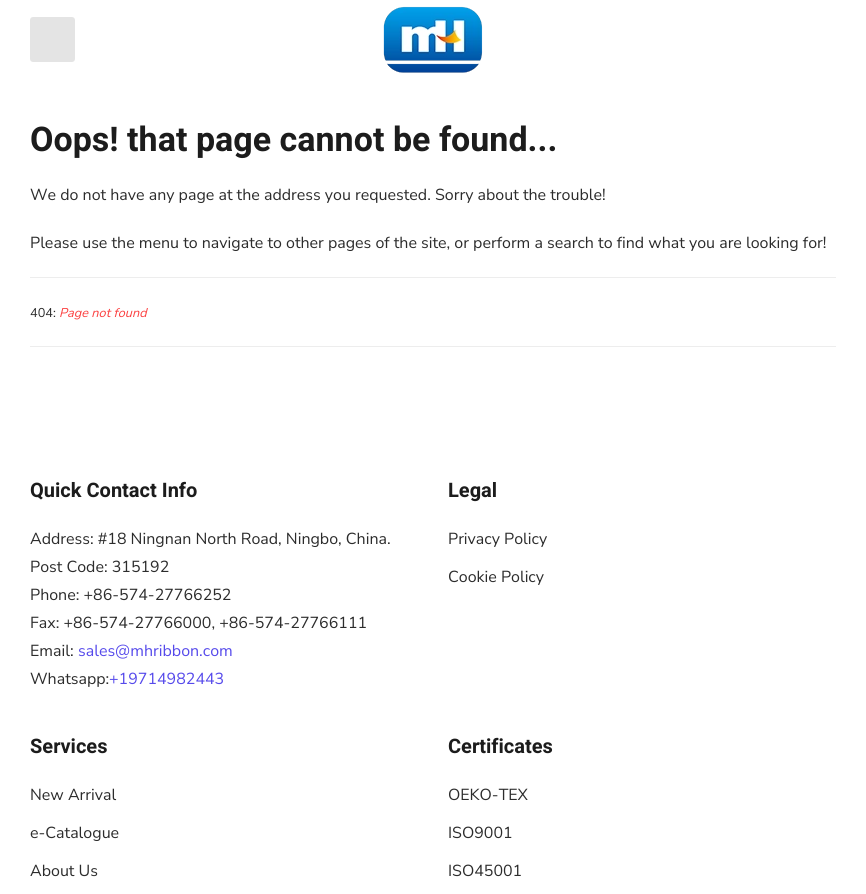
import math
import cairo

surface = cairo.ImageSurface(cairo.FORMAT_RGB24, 866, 894)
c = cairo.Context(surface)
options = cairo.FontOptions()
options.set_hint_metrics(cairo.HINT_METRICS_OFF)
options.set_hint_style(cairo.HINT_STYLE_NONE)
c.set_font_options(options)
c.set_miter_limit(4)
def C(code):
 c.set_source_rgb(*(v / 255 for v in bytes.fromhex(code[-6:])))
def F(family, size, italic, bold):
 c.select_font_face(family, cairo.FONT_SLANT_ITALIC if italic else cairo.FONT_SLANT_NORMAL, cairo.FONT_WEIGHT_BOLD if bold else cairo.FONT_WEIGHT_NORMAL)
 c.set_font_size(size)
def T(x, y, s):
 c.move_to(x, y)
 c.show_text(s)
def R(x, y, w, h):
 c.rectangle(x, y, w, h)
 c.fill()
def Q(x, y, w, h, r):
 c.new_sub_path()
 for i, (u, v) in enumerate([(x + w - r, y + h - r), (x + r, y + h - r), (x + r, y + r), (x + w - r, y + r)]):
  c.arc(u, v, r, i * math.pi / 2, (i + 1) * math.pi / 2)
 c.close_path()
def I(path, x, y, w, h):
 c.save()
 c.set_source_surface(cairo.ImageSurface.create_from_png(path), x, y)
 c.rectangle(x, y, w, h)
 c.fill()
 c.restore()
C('ffffff')
c.paint()
C('e4e4e4')
Q(30,17,45,45,3)
c.fill()
I('1.png',383,6,100,67)
F('Heebo',34,0,1)
C('1c1c1c')
T(30,151,'Oops! that page cannot be found...')
F('Nunito Sans ExtraLight',16,0,0)
C('2c2c2c')
T(30,200,'We do not have any page at the address you requested. Sorry about the trouble!')
T(30,248,'Please use the menu to navigate to other pages of the site, or perform a search to find what you are looking for!')
C('ededed')
R(30,277,806,1)
F('Nunito Sans ExtraLight',12.75,0,0)
C('2c2c2c')
T(30,317,'404:')
F('Nunito Sans ExtraLight',12.75,1,0)
C('fb3f3f')
T(59,317,'Page not found')
C('ededed')
R(30,346,806,1)
F('Heebo',20,0,1)
C('1c1c1c')
T(30,497,'Quick Contact Info')
F('Nunito Sans ExtraLight',16,0,0)
C('2c2c2c')
T(30,544,'Address: #18 Ningnan North Road, Ningbo, China.')
T(30,572,'Post Code: 315192')
T(30,600,'Phone: +86-574-27766252')
T(30,628,'Fax: +86-574-27766000, +86-574-27766111')
T(30,656,'Email:')
C('564aeb')
T(78,656,'sales@mhribbon.com')
C('2c2c2c')
T(30,684,'Whatsapp:')
C('564aeb')
T(109,684,'+19714982443')
F('Heebo',20,0,1)
C('1c1c1c')
T(448,497,'Legal')
F('Nunito Sans ExtraLight',16,0,0)
C('2c2c2c')
T(448,544,'Privacy Policy')
T(448,582,'Cookie Policy')
F('Heebo',20,0,1)
C('1c1c1c')
T(30,753,'Services')
F('Nunito Sans ExtraLight',16,0,0)
C('2c2c2c')
T(30,800,'New Arrival')
T(30,838,'e-Catalogue')
T(30,876,'About Us')
F('Heebo',20,0,1)
C('1c1c1c')
T(448,753,'Certificates')
F('Nunito Sans ExtraLight',16,0,0)
C('2c2c2c')
T(448,800,'OEKO-TEX')
T(448,838,'ISO9001')
T(448,876,'ISO45001')
surface.write_to_png('o.png')
